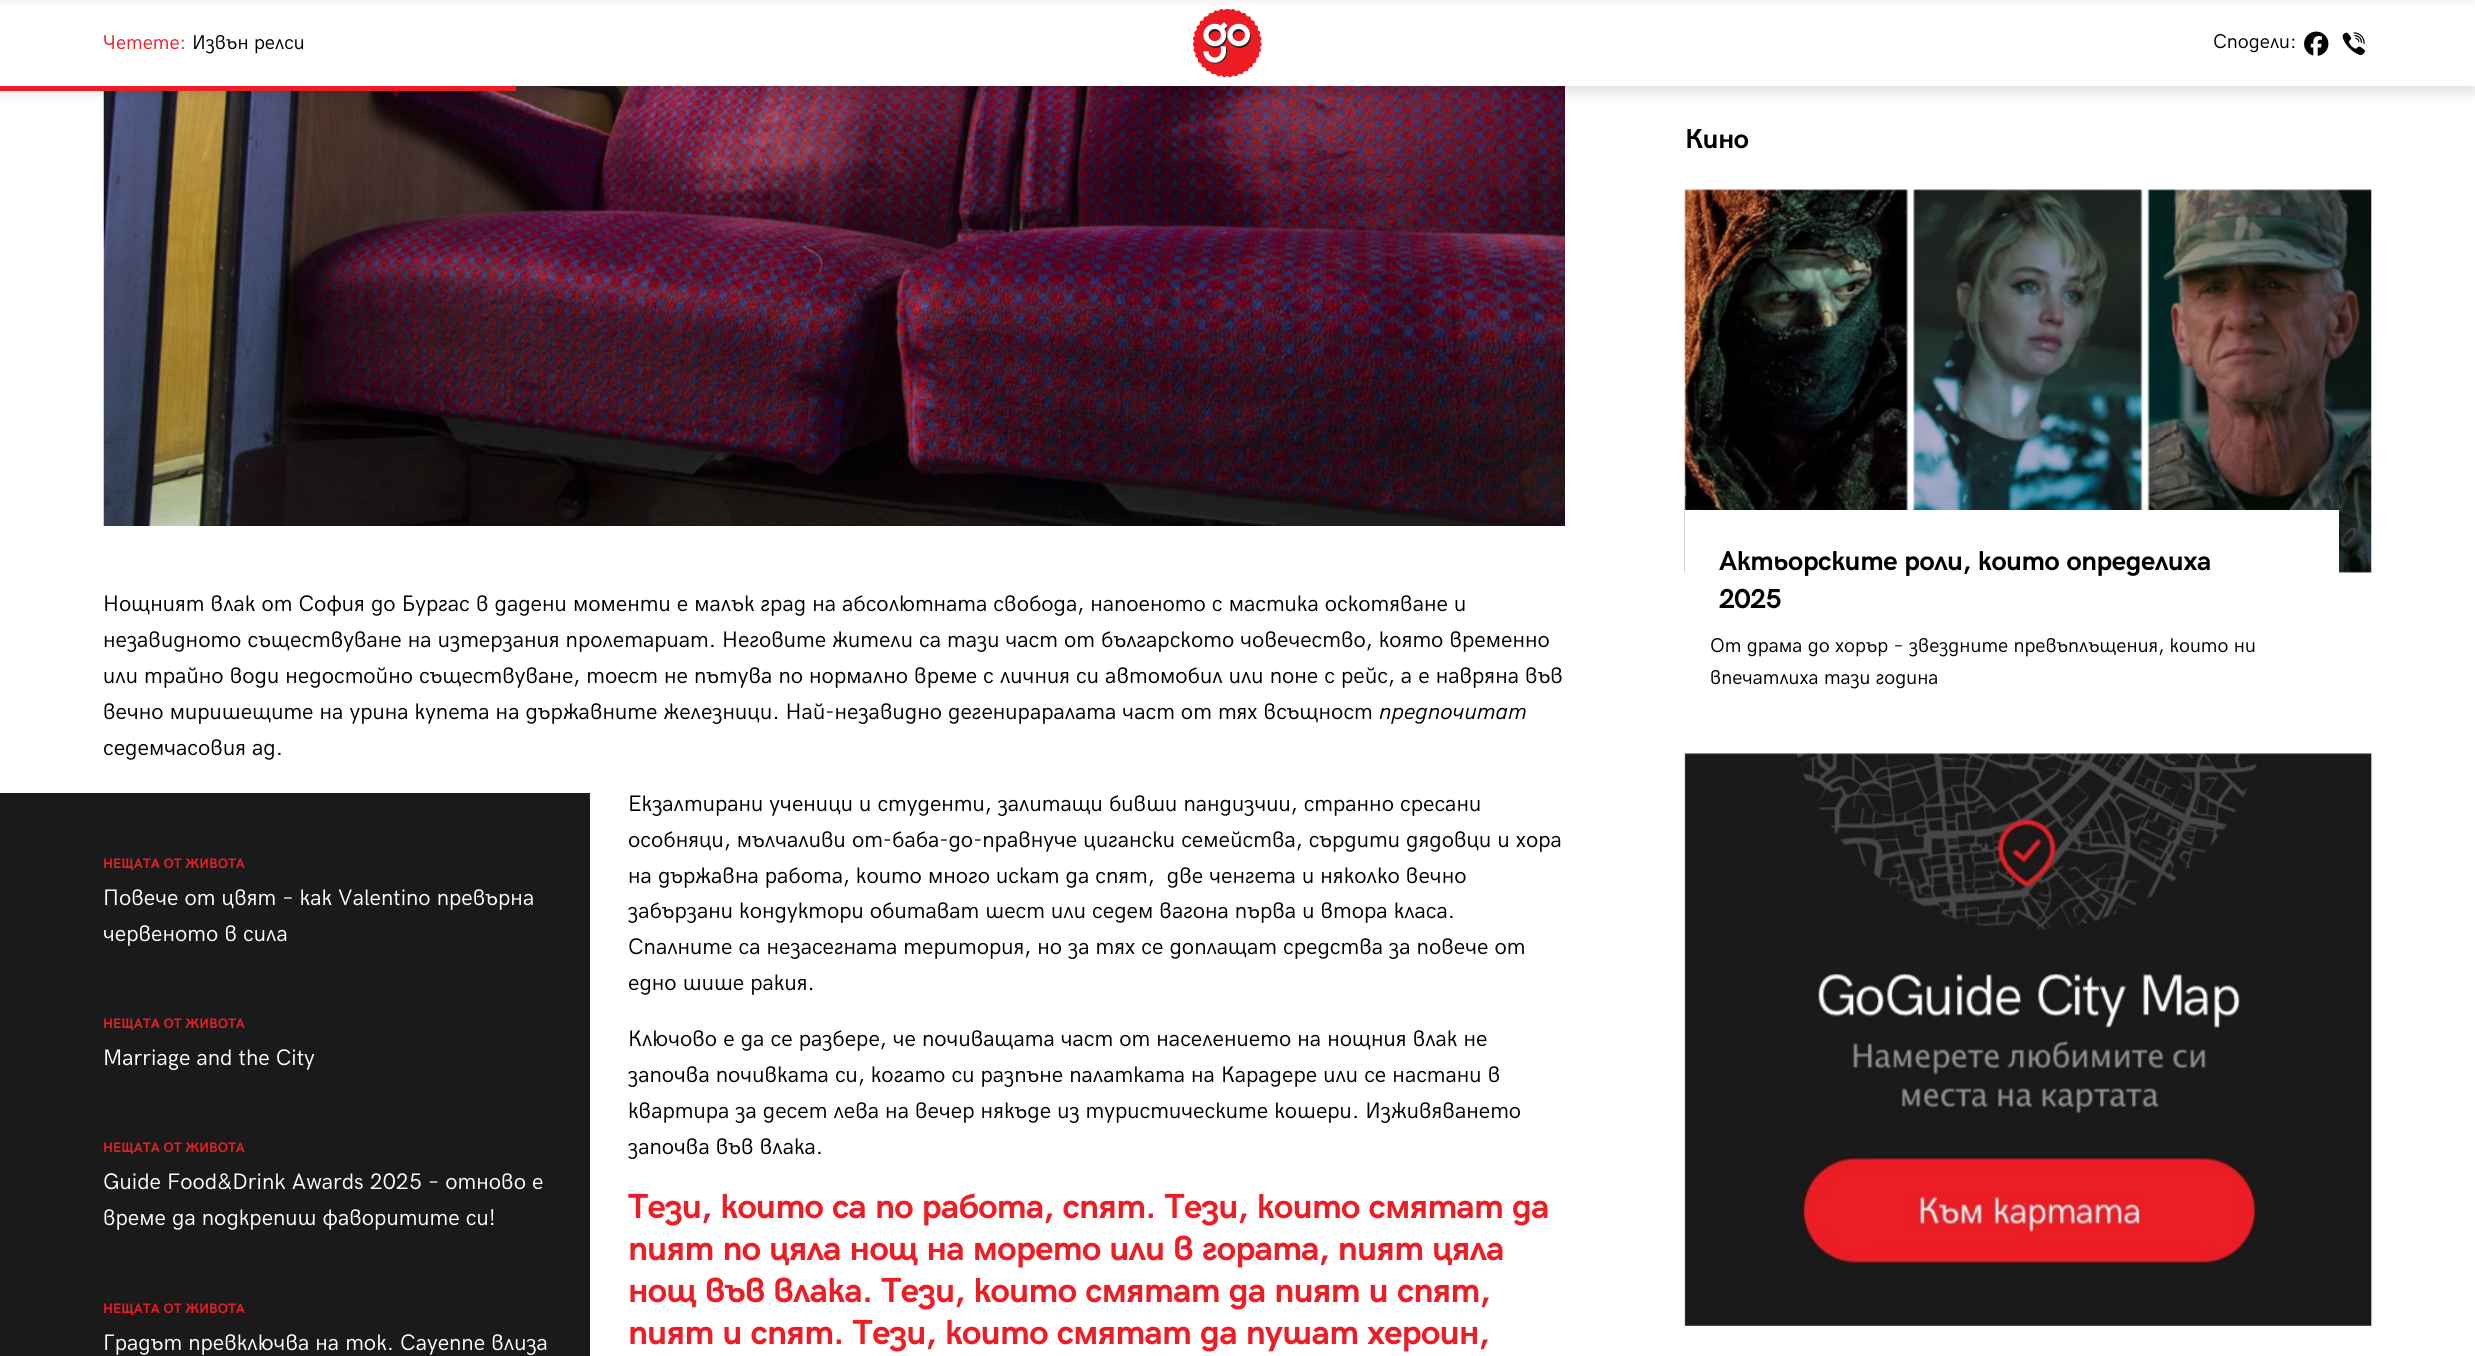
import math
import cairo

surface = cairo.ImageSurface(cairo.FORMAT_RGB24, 2475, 1356)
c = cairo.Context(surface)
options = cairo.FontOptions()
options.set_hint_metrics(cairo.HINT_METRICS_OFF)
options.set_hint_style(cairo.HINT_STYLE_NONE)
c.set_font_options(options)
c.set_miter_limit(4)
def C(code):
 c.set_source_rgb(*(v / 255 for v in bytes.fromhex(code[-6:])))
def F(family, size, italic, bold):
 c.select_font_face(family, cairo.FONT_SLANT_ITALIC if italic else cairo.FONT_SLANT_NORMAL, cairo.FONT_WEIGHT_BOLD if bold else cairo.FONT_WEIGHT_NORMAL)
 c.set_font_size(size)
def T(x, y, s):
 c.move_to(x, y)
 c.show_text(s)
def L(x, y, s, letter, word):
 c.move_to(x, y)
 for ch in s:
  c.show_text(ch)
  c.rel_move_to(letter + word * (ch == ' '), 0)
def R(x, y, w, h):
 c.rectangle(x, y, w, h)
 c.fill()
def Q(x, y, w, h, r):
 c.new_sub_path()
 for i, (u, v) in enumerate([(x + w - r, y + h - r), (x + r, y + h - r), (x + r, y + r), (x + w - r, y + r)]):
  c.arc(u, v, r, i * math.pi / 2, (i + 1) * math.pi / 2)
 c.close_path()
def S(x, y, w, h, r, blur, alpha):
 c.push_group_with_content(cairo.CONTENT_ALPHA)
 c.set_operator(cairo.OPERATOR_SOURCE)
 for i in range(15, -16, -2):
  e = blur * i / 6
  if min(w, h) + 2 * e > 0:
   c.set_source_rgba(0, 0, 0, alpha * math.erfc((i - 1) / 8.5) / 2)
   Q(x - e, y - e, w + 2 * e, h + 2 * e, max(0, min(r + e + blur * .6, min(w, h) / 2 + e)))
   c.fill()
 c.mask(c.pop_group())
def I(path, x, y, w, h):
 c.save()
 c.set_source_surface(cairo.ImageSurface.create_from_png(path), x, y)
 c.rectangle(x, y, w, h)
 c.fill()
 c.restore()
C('ffffff')
c.paint()
I('6.png',103,86,1462,440)
C('000000')
S(0,6,2475,87,0,6,.12)
C('ffffff')
R(0,0,2475,86)
I('1.png',1193,9,69,69)
C('000000')
S(0,-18,2475,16,0,6,.12)
F('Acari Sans',20,0,0)
C('ec1d24')
T(103,49,'Четете:')
C('000000')
T(192,49,'Извън релси')
T(2213,48,'Сподели:')
I('2.png',2304,31,25,25)
I('3.png',2342,32,23,24)
C('ec1d24')
R(0,86,516,5)
F('Acari Sans',27.5,0,1)
C('000000')
L(1685,148,'Кино',-.35,0)
I('4.png',1684,189,688,384)
C('ffffff')
R(1685,510,654,63)
C('000000')
L(1719,570,'Актьорските роли, които определиха',-.35,0)
L(1719,608,'2025',-.35,0)
F('Acari Sans',20,0,0)
T(1710,652,'От драма до хорър – звездните превъплъщения, които ни')
T(1710,684,'впечатлиха тази година')
I('5.png',1684,753,689,573)
F('Acari Sans',22.5,0,0)
T(103,611,'Нощният влак от София до Бургас в дадени моменти е малък град на абсолютната свобода, напоеното с мастика оскотяване и')
T(103,647,'незавидното съществуване на изтерзания пролетариат. Неговите жители са тази част от българското човечество, която временно')
T(103,683,'или трайно води недостойно съществуване, тоест не пътува по нормално време с личния си автомобил или поне с рейс, а е навряна във')
T(103,719,'вечно миришещите на урина купета на държавните железници. Най-незавидно дегенираралата част от тях всъщност')
F('Acari Sans',22.5,1,0)
T(1379,719,'предпочитат')
F('Acari Sans',22.5,0,0)
T(103,755,'седемчасовия ад.')
C('1a1a1a')
R(0,793,590,563)
F('Acari Sans',13.75,0,1)
C('ec1d24')
T(103,868,'НЕЩАТА ОТ ЖИВОТА')
F('Acari Sans',22.5,0,0)
C('ffffff')
T(103,905,'Повече от цвят – как Valentino превърна')
T(103,941,'червеното в сила')
F('Acari Sans',13.75,0,1)
C('ec1d24')
T(103,1028,'НЕЩАТА ОТ ЖИВОТА')
F('Acari Sans',22.5,0,0)
C('ffffff')
T(103,1065,'Marriage and the City')
F('Acari Sans',13.75,0,1)
C('ec1d24')
T(103,1152,'НЕЩАТА ОТ ЖИВОТА')
F('Acari Sans',22.5,0,0)
C('ffffff')
T(103,1189,'Guide Food&Drink Awards 2025 – отново е')
T(103,1225,'време да подкрепиш фаворитите си!')
F('Acari Sans',13.75,0,1)
C('ec1d24')
T(103,1313,'НЕЩАТА ОТ ЖИВОТА')
F('Acari Sans',22.5,0,0)
C('ffffff')
T(103,1350,'Градът превключва на ток. Cayenne влиза')
C('000000')
T(628,811,'Екзалтирани ученици и студенти, залитащи бивши пандизчии, странно сресани')
T(628,847,'особняци, мълчаливи от-баба-до-правнуче цигански семейства, сърдити дядовци и хора')
T(628,883,'на държавна работа, които много искат да спят,  две ченгета и няколко вечно')
T(628,918,'забързани кондуктори обитават шест или седем вагона първа и втора класа.')
T(628,954,'Спалните са незасегната територия, но за тях се доплащат средства за повече от')
T(628,990,'едно шише ракия.')
T(628,1046,'Ключово е да се разбере, че почиващата част от населението на нощния влак не')
T(628,1082,'започва почивката си, когато си разпъне палатката на Карадере или се настани в')
T(628,1118,'квартира за десет лева на вечер някъде из туристическите кошери. Изживяването')
T(628,1154,'започва във влака.')
F('Acari Sans',35,0,1)
C('ec1d24')
L(628,1218,'Тези, които са по работа, спят. Тези, които смятат да',-.62,0)
L(628,1260,'пият по цяла нощ на морето или в гората, пият цяла',-.62,0)
L(628,1302,'нощ във влака. Тези, които смятат да пият и спят,',-.62,0)
L(628,1344,'пият и спят. Тези, които смятат да пушат хероин,',-.62,0)
surface.write_to_png('o.png')
